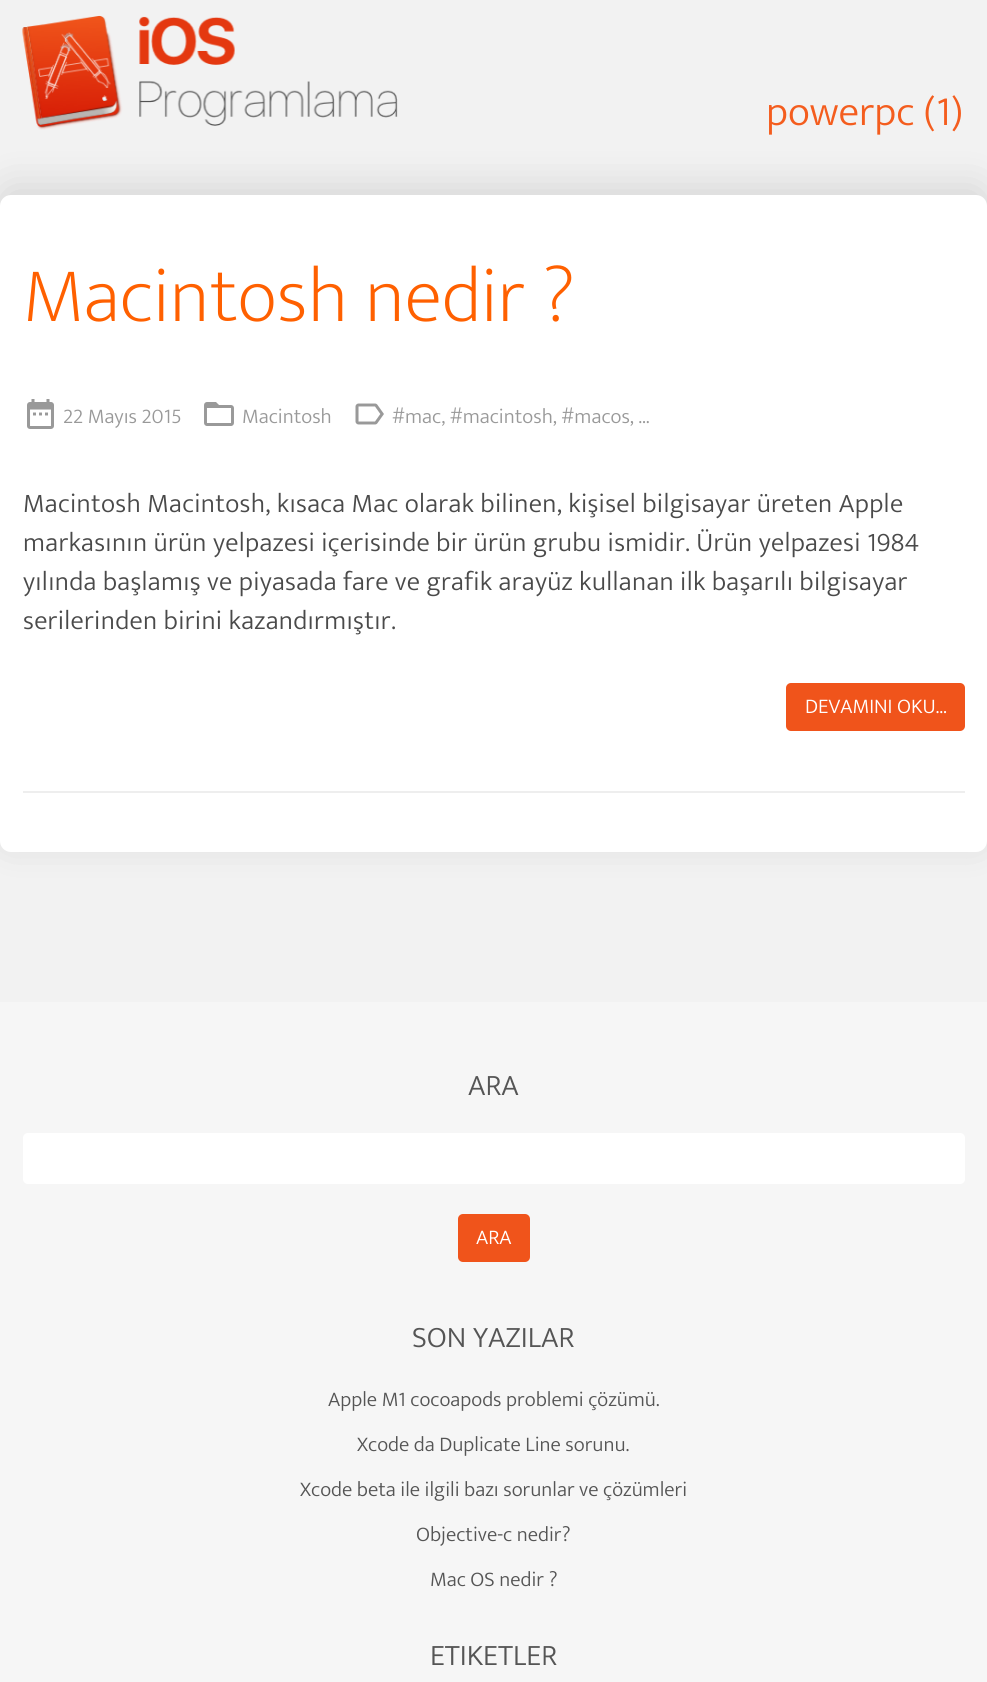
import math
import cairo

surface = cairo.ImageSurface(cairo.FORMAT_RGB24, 987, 1682)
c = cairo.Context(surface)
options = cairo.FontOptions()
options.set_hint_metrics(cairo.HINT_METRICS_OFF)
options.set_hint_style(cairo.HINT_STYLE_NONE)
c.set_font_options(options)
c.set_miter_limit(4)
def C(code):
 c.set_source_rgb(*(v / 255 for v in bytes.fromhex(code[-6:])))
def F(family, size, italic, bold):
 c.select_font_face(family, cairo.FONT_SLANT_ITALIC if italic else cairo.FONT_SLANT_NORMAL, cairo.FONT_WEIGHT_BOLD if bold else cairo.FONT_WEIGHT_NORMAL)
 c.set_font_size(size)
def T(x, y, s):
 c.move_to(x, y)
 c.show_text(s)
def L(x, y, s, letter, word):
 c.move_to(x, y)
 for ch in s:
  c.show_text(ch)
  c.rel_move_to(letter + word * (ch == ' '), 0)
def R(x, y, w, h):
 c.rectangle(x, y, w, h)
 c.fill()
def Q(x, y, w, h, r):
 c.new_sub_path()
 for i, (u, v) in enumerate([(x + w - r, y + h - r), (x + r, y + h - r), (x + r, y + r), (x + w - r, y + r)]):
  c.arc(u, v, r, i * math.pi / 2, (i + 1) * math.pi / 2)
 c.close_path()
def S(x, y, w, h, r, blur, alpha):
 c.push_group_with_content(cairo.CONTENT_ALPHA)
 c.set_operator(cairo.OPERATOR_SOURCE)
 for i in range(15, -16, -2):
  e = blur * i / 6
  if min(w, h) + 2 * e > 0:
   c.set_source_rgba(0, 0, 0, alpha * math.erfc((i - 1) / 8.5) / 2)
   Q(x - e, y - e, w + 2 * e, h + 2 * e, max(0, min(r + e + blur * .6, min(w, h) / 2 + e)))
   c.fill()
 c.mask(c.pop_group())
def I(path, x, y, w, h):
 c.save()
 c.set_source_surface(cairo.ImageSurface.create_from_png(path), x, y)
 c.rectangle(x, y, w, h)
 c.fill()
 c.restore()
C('f2f2f2')
c.paint()
I('1.png',22,15,376,115)
C('323232')
S(0,186,987,657,11,19,.15)
F('Mukta Light',42,0,0)
C('f45d1e')
T(766,125,'powerpc (1)')
C('ffffff')
Q(0,195,987,657,11)
c.fill()
F('Mukta ExtraLight',78,0,0)
C('ff6000')
T(23,321,'Macintosh nedir ?')
I('2.png',27,399,27,30)
F('Mukta Light',21,0,0)
C('999999')
T(63,423,'22 Mayıs 2015')
I('3.png',204,402,30,24)
T(242,423,'Macintosh')
I('4.png',355,403,29,22)
T(392,423,'#mac, #macintosh, #macos, ...')
F('Mukta Light',27,0,0)
C('4a4a4a')
L(23,512,'Macintosh Macintosh, kısaca Mac olarak bilinen, kişisel bilgisayar üreten Apple',.3,0)
L(23,551,'markasının ürün yelpazesi içerisinde bir ürün grubu ismidir. Ürün yelpazesi 1984',.3,0)
L(23,590,'yılında başlamış ve piyasada fare ve grafik arayüz kullanan ilk başarılı bilgisayar',.3,0)
L(23,629,'serilerinden birini kazandırmıştır.',.3,0)
C('f0541b')
Q(786,683,179,48,5)
c.fill()
F('Mukta Light',21,0,0)
C('ffffff')
T(805,713,'DEVAMINI OKU...')
C('eeeeee')
R(23,791,942,2)
C('f6f6f6')
R(0,1002,987,680)
F('Mukta Light',30,0,0)
C('555555')
T(468,1095,'ARA')
C('ffffff')
Q(23,1133,942,51,5)
c.fill()
C('f0541b')
Q(458,1214,72,48,5)
c.fill()
F('Mukta Light',21,0,0)
C('ffffff')
T(476,1244,'ARA')
F('Mukta Light',30,0,0)
C('555555')
T(412,1347,'SON YAZILAR')
F('Mukta Light',21,0,0)
T(328,1406,'Apple M1 cocoapods problemi çözümü.')
T(357,1451,'Xcode da Duplicate Line sorunu.')
T(300,1496,'Xcode beta ile ilgili bazı sorunlar ve çözümleri')
T(416,1541,'Objective-c nedir?')
T(430,1586,'Mac OS nedir ?')
F('Mukta Light',30,0,0)
T(430,1665,'ETIKETLER')
surface.write_to_png('o.png')
